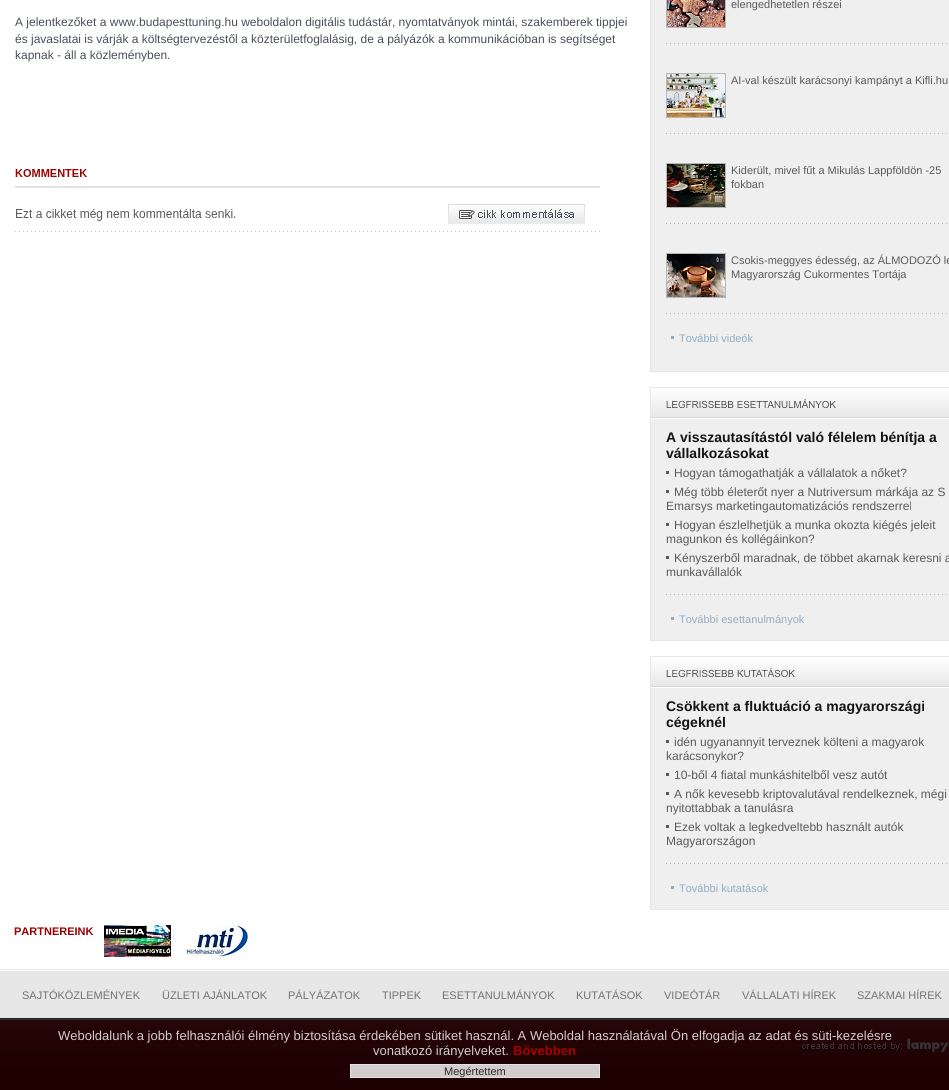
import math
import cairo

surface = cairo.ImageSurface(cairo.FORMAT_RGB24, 949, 1090)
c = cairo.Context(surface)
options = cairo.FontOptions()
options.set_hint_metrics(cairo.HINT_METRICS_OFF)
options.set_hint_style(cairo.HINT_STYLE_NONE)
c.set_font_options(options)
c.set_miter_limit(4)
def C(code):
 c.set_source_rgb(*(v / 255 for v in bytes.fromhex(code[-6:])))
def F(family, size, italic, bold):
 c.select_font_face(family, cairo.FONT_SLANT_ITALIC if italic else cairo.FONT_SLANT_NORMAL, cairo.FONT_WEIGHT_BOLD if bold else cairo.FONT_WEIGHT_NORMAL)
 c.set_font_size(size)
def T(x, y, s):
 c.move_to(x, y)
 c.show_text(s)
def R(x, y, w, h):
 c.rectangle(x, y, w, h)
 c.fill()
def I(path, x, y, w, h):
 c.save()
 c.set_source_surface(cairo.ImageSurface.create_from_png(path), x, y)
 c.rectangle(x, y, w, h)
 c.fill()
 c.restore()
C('ffffff')
c.paint()
F('Liberation Sans',12,0,0)
C('494f57')
T(15,26,'A jelentkezőket a www.budapesttuning.hu weboldalon digitális tudástár, nyomtatványok mintái, szakemberek tippjei')
T(15,43,'és javaslatai is várják a költségtervezéstől a közterületfoglalásig, de a pályázók a kommunikációban is segítséget')
T(15,59,'kapnak - áll a közleményben.')
I('1.png',15,169,585,63)
C('efefef')
c.rectangle(650.5,-.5,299,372)
c.fill_preserve()
C('e7e7e7')
c.set_line_width(1)
c.stroke()
c.rectangle(666.5,-.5,59,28)
C('b8b8b8')
c.stroke()
I('2.png',667,0,58,27)
F('Liberation Sans',11,0,0)
C('5a5a5a')
T(731,8,'elengedhetetlen részei')
I('3.png',666,43,281,1)
c.rectangle(666.5,73.5,59,44)
C('b8b8b8')
c.stroke()
I('4.png',667,74,58,43)
C('5a5a5a')
T(731,84,'AI-val készült karácsonyi kampányt a Kifli.hu')
I('3.png',666,133,281,1)
c.rectangle(666.5,163.5,59,44)
C('b8b8b8')
c.stroke()
I('5.png',667,164,58,43)
C('5a5a5a')
T(731,174,'Kiderült, mivel fűt a Mikulás Lappföldön -25')
T(731,188,'fokban')
I('3.png',666,223,281,1)
c.rectangle(666.5,253.5,59,44)
C('b8b8b8')
c.stroke()
I('6.png',667,254,58,43)
C('5a5a5a')
T(731,264,'Csokis-meggyes édesség, az ÁLMODOZÓ le')
T(731,278,'Magyarország Cukormentes Tortája')
I('3.png',666,313,281,1)
C('8faec6')
T(679,342,'További videók')
R(671,336,3,3)
C('efefef')
R(651,419,298,221)
c.rectangle(650.5,387.5,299,253)
C('e7e7e7')
c.stroke()
I('7.png',651,388,298,31)
I('8.png',666,399,170,9)
F('Liberation Sans',14,0,1)
C('141414')
T(666,442,'A visszautasítástól való félelem bénítja a')
T(666,458,'vállalkozásokat')
C('5a5a5a')
R(666,471,3,3)
F('Liberation Sans',12,0,0)
T(674,477,'Hogyan támogathatják a vállalatok a nőket?')
R(666,490,3,3)
T(674,496,'Még több életerőt nyer a Nutriversum márkája az S')
T(666,510,'Emarsys marketingautomatizációs rendszerrel')
R(666,523,3,3)
T(674,529,'Hogyan észlelhetjük a munka okozta kiégés jeleit')
T(666,543,'magunkon és kollégáinkon?')
R(666,556,3,3)
T(674,562,'Kényszerből maradnak, de többet akarnak keresni a')
T(666,576,'munkavállalók')
I('3.png',666,594,281,1)
F('Liberation Sans',11,0,0)
C('8faec6')
T(679,623,'További esettanulmányok')
R(671,617,3,3)
C('efefef')
R(651,688,298,221)
c.rectangle(650.5,656.5,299,253)
C('e7e7e7')
c.stroke()
I('7.png',651,657,298,31)
I('9.png',666,668,129,9)
F('Liberation Sans',14,0,1)
C('141414')
T(666,711,'Csökkent a fluktuáció a magyarországi')
T(666,727,'cégeknél')
C('5a5a5a')
R(666,740,3,3)
F('Liberation Sans',12,0,0)
T(674,746,'idén ugyanannyit terveznek költeni a magyarok')
T(666,760,'karácsonykor?')
R(666,773,3,3)
T(674,779,'10-ből 4 fiatal munkáshitelből vesz autót')
R(666,792,3,3)
T(674,798,'A nők kevesebb kriptovalutával rendelkeznek, mégi')
T(666,812,'nyitottabbak a tanulásra')
R(666,825,3,3)
T(674,831,'Ezek voltak a legkedveltebb használt autók')
T(666,845,'Magyarországon')
I('3.png',666,863,281,1)
F('Liberation Sans',11,0,0)
C('8faec6')
T(679,892,'További kutatások')
R(671,886,3,3)
F('Liberation Sans',11,0,1)
C('9a0000')
T(14,935,'PARTNEREINK')
I('10.png',104,925,67,32)
I('11.png',186,925,62,32)
I('12.png',0,969,949,50)
F('Liberation Sans',11,0,0)
C('727272')
T(22,999,'SAJTÓKÖZLEMÉNYEK')
T(162,999,'ÜZLETI AJÁNLATOK')
T(288,999,'PÁLYÁZATOK')
T(382,999,'TIPPEK')
T(442,999,'ESETTANULMÁNYOK')
T(576,999,'KUTATÁSOK')
T(664,999,'VIDEÓTÁR')
T(742,999,'VÁLLALATI HÍREK')
T(857,999,'SZAKMAI HÍREK')
I('13.png',0,1020,949,70)
c.set_source_rgba(0,0,0,0.8)
R(0,1018,949,72)
F('Liberation Sans',13,0,0)
C('d3cdcd')
T(58,1040,'Weboldalunk a jobb felhasználói élmény biztosítása érdekében sütiket használ. A Weboldal használatával Ön elfogadja az adat és süti-kezelésre')
T(373,1055,'vonatkozó irányelveket.')
F('Liberation Sans',13,0,1)
C('a80101')
T(513,1055,'Bővebben')
C('d2cccc')
c.rectangle(350.5,1064.5,249,13)
c.fill_preserve()
C('e3e2e2')
c.stroke()
F('Liberation Sans',11,0,0)
C('2a2929')
T(444,1075,'Megértettem')
surface.write_to_png('o.png')
